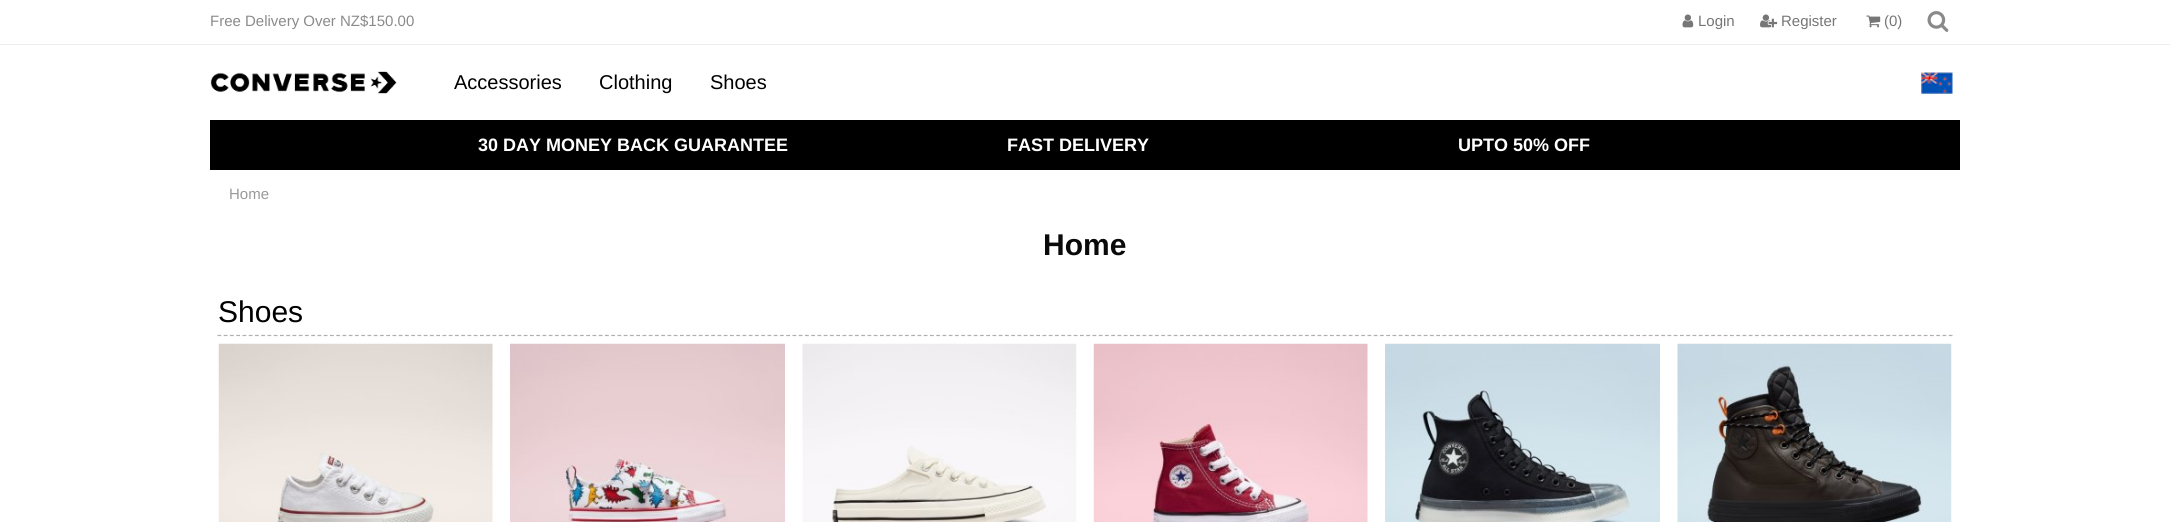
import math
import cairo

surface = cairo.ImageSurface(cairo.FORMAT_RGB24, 2170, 522)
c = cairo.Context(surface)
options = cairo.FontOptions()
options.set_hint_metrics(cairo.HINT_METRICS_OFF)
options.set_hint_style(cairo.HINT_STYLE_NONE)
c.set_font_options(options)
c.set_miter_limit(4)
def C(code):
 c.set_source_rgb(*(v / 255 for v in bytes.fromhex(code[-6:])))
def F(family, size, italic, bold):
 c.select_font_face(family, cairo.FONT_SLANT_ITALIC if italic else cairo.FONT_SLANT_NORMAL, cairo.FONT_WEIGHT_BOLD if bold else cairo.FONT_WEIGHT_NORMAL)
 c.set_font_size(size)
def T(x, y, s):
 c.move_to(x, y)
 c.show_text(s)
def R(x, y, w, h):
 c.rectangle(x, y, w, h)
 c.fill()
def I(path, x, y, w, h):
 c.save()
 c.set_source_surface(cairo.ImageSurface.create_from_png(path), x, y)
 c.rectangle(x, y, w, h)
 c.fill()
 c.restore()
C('ffffff')
c.paint()
C('eeeeee')
R(0,44,2170,1)
F('Liberation Sans',15,0,0)
C('8a8a8a')
T(210,26,'Free Delivery Over NZ$150.00')
I('1.png',1682,14,12,14)
C('767676')
T(1698,26,'Login')
I('2.png',1760,14,18,14)
T(1781,26,'Register')
I('3.png',1866,15,15,13)
T(1884,26,'(0)')
I('4.png',1927,11,22,21)
I('5.png',210,71,187,23)
F('Liberation Sans',20,0,0)
C('000000')
T(454,89,'Accessories')
T(599,89,'Clothing')
T(710,89,'Shoes')
I('6.png',1921,72,32,22)
R(210,120,1750,50)
F('Liberation Sans',18,0,1)
C('ffffff')
T(478,151,'30 DAY MONEY BACK GUARANTEE')
T(1007,151,'FAST DELIVERY')
T(1458,151,'UPTO 50% OFF')
F('Liberation Sans',15,0,0)
C('999999')
T(229,199,'Home')
F('Liberation Sans',30,0,1)
C('0a0a0a')
T(1043,255,'Home')
c.new_path()
c.move_to(217.5,335.5)
c.line_to(1952.5,335.5)
C('afafaf')
c.set_line_width(1.2)
c.set_dash([3.75,2.5])
c.stroke()
F('Liberation Sans',30,0,0)
C('000000')
T(218,322,'Shoes')
I('7.png',218,343,275,179)
I('8.png',510,343,275,179)
I('9.png',802,343,275,179)
I('10.png',1093,343,275,179)
I('11.png',1385,343,275,179)
I('12.png',1677,343,275,179)
surface.write_to_png('o.png')
